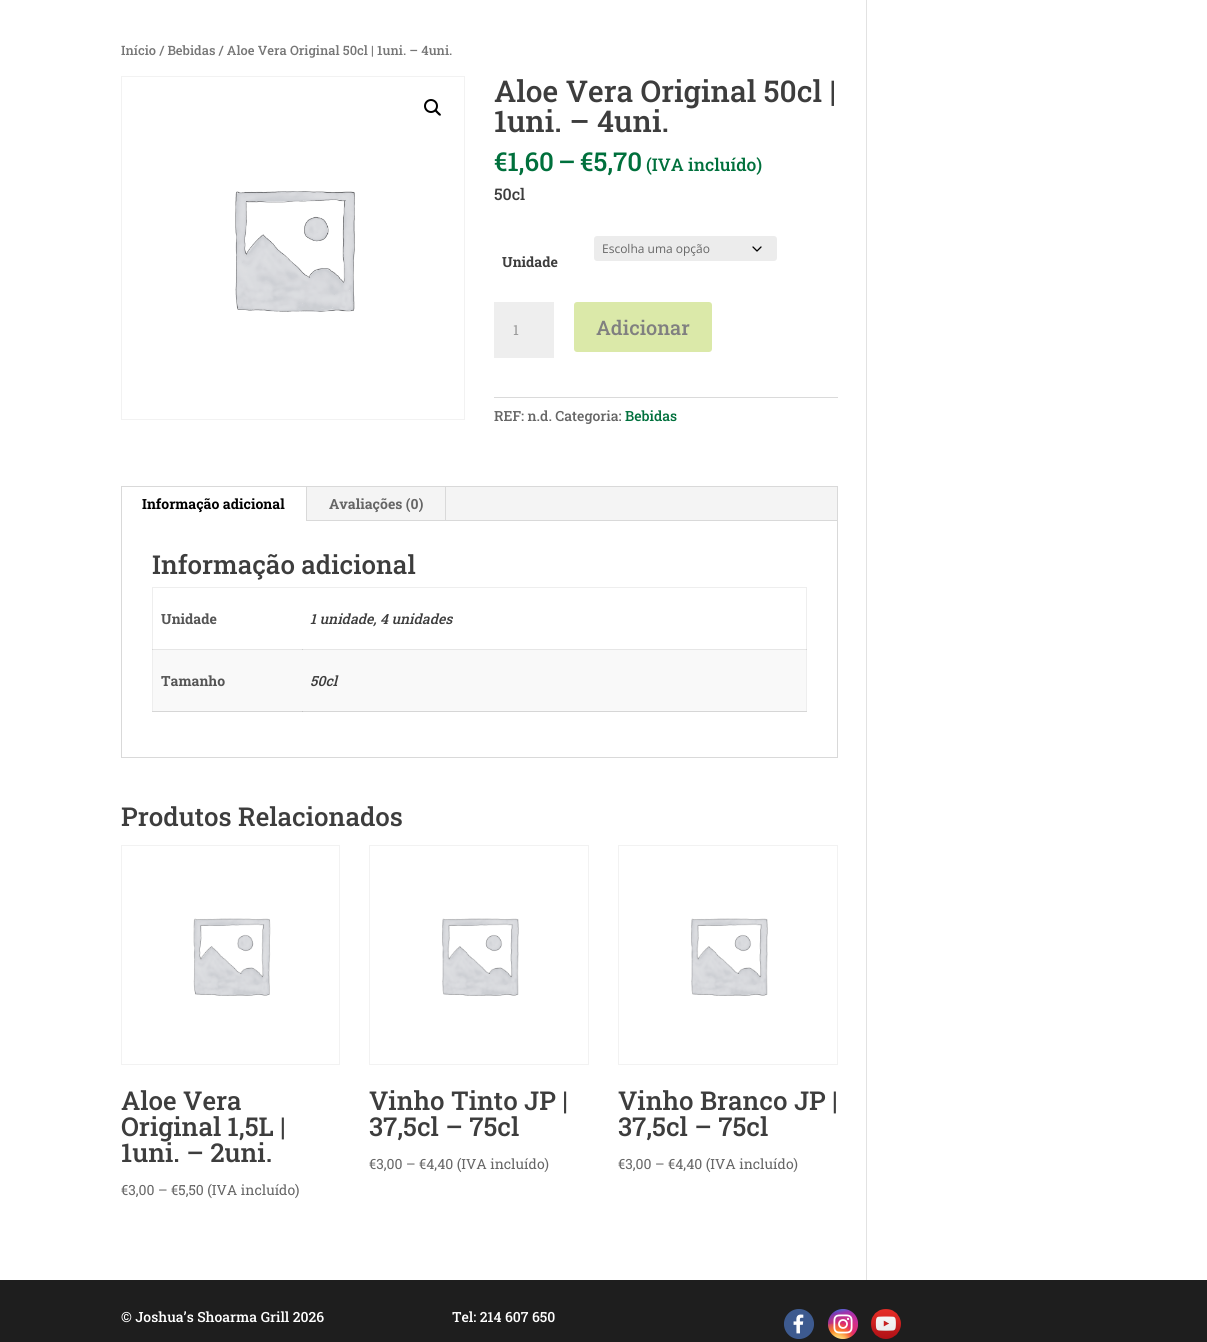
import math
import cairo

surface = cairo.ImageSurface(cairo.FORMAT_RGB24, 1207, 1342)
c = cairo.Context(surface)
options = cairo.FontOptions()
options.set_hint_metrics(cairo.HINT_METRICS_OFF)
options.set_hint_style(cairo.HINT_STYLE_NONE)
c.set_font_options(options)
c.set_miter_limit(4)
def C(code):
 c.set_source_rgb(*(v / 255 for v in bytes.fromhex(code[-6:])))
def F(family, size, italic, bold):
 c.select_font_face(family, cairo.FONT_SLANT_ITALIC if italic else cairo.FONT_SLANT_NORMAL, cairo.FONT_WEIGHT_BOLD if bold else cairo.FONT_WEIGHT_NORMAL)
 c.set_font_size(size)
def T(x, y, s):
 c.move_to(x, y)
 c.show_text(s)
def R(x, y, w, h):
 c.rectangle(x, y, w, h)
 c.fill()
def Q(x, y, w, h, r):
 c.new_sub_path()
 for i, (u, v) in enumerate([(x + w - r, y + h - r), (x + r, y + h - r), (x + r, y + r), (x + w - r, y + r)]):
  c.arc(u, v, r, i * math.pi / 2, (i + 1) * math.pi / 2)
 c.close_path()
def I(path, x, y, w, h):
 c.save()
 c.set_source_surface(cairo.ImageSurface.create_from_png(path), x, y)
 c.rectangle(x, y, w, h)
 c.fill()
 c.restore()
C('ffffff')
c.paint()
C('e6e6e6')
R(152,649,655,1)
C('cfcfcf')
R(302,649,1,1)
F('Roboto Slab Medium',12.9,0,0)
C('767676')
T(121,55,'Início / Bebidas / Aloe Vera Original 50cl | 1uni. – 4uni.')
c.rectangle(121.5,76.5,343,343)
C('f2f2f2')
c.set_line_width(1)
c.stroke()
I('1.png',235,191,120,121)
c.arc(431,106,6,0,2 * math.pi)
C('000000')
c.set_line_width(2)
c.stroke()
c.new_path()
c.move_to(435,110)
c.curve_to(436,108.5,438,111.5,438.5,112)
c.curve_to(439,112.5,442,114.5,440.5,115.5)
c.curve_to(439.5,116.5,437.5,114,437,113.5)
c.curve_to(436.5,113,434,111,435,110)
c.close_path()
c.fill()
F('Roboto Slab Medium',30,0,0)
C('3d3d3d')
T(494,102,'Aloe Vera Original 50cl |')
T(494,132,'1uni. – 4uni.')
F('Roboto Slab Medium',26,0,0)
C('00703c')
T(494,171,'€1,60')
T(558,171,'–')
T(580,171,'€5,70')
F('Roboto Slab Medium',17.5,0,0)
T(646,171,'(IVA incluído)')
F('Roboto Slab Medium',16,0,0)
C('3d3d3d')
T(494,200,'50cl')
C('ececec')
Q(594,236,183,25,3)
c.fill()
c.new_path()
c.move_to(753,247)
c.line_to(757,251)
c.line_to(761,247)
C('000000')
c.set_line_width(1.3)
c.set_line_cap(cairo.LINE_CAP_ROUND)
c.set_line_join(cairo.LINE_JOIN_ROUND)
c.stroke()
F('Open Sans',12,0,0)
C('666666')
T(602,253,'Escolha uma opção')
F('Roboto Slab',14,0,1)
C('3d3d3d')
T(502,267,'Unidade')
C('eeeeee')
R(494,302,60,56)
F('Roboto Slab',14,0,0)
C('999999')
T(513,335,'1')
C('dbe9a9')
Q(575,303,136,48,2)
c.fill_preserve()
c.set_line_width(2)
c.set_line_cap(cairo.LINE_CAP_BUTT)
c.set_line_join(cairo.LINE_JOIN_MITER)
c.stroke()
F('Roboto Slab Medium',20,0,0)
C('808080')
T(596,335,'Adicionar')
C('dadada')
R(494,397,344,1)
F('Roboto Slab Medium',14,0,0)
C('666666')
T(494,421,'REF: n.d. Categoria:')
C('00703c')
T(625,421,'Bebidas')
c.rectangle(121.5,486.5,716,271)
C('d9d9d9')
c.set_line_width(1)
c.stroke()
C('f4f4f4')
R(307,487,530,33)
C('d9d9d9')
R(306,487,1,34)
F('Roboto Slab',14,0,1)
C('000000')
T(142,509,'Informação adicional')
C('d9d9d9')
R(445,487,1,34)
C('666666')
T(329,509,'Avaliações (0)')
C('d9d9d9')
R(307,520,530,1)
F('Roboto Slab Medium',26,0,0)
C('3d3d3d')
T(152,574,'Informação adicional')
C('eeeeee')
R(152,587,655,1)
R(806,587,1,125)
C('d6d6d6')
R(806,649,1,1)
R(152,711,655,1)
C('eeeeee')
R(152,587,1,125)
C('d6d6d6')
R(152,649,1,1)
R(152,711,1,1)
F('Roboto Slab',14,0,1)
C('555555')
T(161,624,'Unidade')
F('Roboto Slab Medium',14,1,0)
C('3d3d3d')
T(310,624,'1 unidade, 4 unidades')
C('f9f9f9')
R(153,650,653,61)
F('Roboto Slab',14,0,1)
C('555555')
T(161,686,'Tamanho')
C('c1c1c1')
R(302,711,1,1)
F('Roboto Slab Medium',14,1,0)
C('3d3d3d')
T(310,686,'50cl')
F('Roboto Slab Medium',26,0,0)
T(121,826,'Produtos Relacionados')
c.rectangle(121.5,845.5,218,219)
C('f2f2f2')
c.stroke()
I('2.png',193,918,78,78)
C('3d3d3d')
T(121,1110,'Aloe Vera')
T(121,1136,'Original 1,5L |')
T(121,1162,'1uni. – 2uni.')
F('Roboto Slab',14,0,0)
C('666666')
T(121,1195,'€3,00 – €5,50 (IVA incluído)')
c.rectangle(369.5,845.5,219,219)
C('f2f2f2')
c.stroke()
I('3.png',442,918,77,78)
F('Roboto Slab Medium',26,0,0)
C('3d3d3d')
T(369,1110,'Vinho Tinto JP |')
T(369,1136,'37,5cl – 75cl')
F('Roboto Slab',14,0,0)
C('666666')
T(369,1169,'€3,00 – €4,40 (IVA incluído)')
c.rectangle(618.5,845.5,219,219)
C('f2f2f2')
c.stroke()
I('3.png',691,918,77,78)
F('Roboto Slab Medium',26,0,0)
C('3d3d3d')
T(618,1110,'Vinho Branco JP |')
T(618,1136,'37,5cl – 75cl')
F('Roboto Slab',14,0,0)
C('666666')
T(618,1169,'€3,00 – €4,40 (IVA incluído)')
C('e2e2e2')
R(866,0,1,1280)
C('1e1e1e')
R(0,1280,1207,62)
F('Roboto Slab Medium',14,0,0)
C('ffffff')
T(121,1322,'© Joshua’s Shoarma Grill 2026')
T(452,1322,'Tel: 214 607 650')
I('4.png',784,1309,30,30)
I('5.png',828,1309,30,30)
I('6.png',871,1309,30,30)
surface.write_to_png('o.png')
